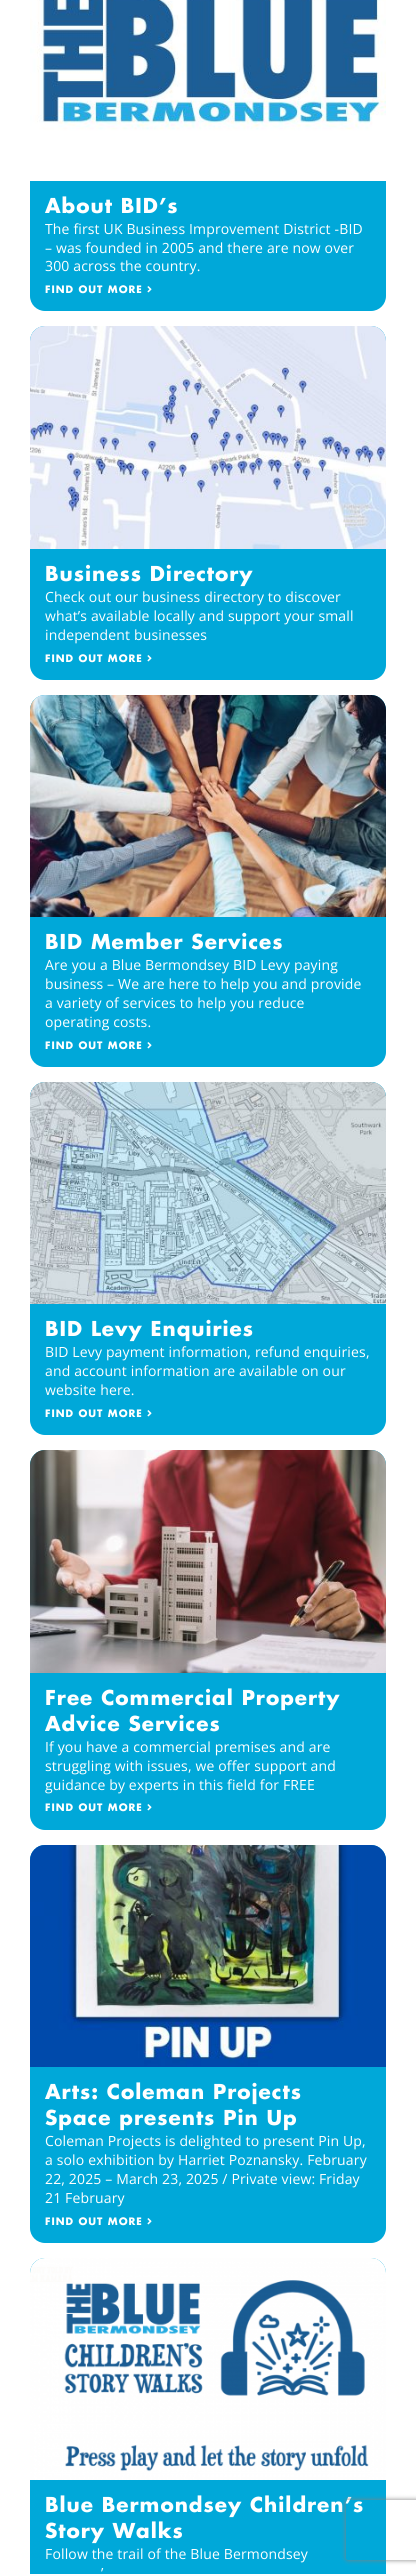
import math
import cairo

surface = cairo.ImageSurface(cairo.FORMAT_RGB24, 416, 2574)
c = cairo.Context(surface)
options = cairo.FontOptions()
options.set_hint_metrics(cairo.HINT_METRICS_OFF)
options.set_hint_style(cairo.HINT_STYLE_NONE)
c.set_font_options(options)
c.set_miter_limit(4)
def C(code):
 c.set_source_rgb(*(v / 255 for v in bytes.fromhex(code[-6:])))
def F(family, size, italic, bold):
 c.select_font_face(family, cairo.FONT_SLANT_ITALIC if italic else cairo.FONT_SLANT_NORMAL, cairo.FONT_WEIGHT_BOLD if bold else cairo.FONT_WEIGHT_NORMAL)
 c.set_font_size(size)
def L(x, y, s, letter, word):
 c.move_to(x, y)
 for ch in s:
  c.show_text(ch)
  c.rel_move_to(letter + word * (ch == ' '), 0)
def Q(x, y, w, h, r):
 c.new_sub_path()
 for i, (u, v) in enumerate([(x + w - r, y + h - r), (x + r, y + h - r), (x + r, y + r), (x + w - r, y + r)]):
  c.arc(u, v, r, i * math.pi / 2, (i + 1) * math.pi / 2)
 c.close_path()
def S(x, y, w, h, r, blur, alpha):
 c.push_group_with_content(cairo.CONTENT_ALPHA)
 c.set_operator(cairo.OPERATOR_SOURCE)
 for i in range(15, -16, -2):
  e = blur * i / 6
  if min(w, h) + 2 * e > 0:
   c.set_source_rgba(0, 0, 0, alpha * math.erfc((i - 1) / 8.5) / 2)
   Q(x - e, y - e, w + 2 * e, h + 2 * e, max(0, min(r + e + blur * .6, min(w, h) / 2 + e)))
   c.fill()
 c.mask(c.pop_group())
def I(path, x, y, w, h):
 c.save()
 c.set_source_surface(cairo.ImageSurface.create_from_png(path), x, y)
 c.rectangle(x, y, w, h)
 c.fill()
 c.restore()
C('ffffff')
c.paint()
C('00a8d9')
Q(30,-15,356,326,15)
c.fill()
I('1.png',30,0,356,181)
F('Futura',20,0,1)
C('ffffff')
L(45,213,'About BID’s',1,0)
F('Open Sans',14,0,0)
L(45,234,'The first UK Business Improvement District -BID',.15,0)
L(45,253,'– was founded in 2005 and there are now over',.15,0)
L(45,271,'300 across the country.',.15,0)
F('Futura',10,0,1)
L(45,293,'FIND OUT MORE',1,0)
I('2.png',147,286,5,7)
C('00a8d9')
Q(30,326,356,354,15)
c.fill()
I('3.png',30,326,356,223)
F('Futura',20,0,1)
C('ffffff')
L(45,581,'Business Directory',1,0)
F('Open Sans',14,0,0)
L(45,602,'Check out our business directory to discover',.15,0)
L(45,621,'what’s available locally and support your small',.15,0)
L(45,640,'independent businesses',.15,0)
F('Futura',10,0,1)
L(45,662,'FIND OUT MORE',1,0)
I('2.png',147,655,5,7)
C('00a8d9')
Q(30,695,356,372,15)
c.fill()
I('4.png',30,695,356,222)
F('Futura',20,0,1)
C('ffffff')
L(45,949,'BID Member Services',1,0)
F('Open Sans',14,0,0)
L(45,970,'Are you a Blue Bermondsey BID Levy paying',.15,0)
L(45,989,'business – We are here to help you and provide',.15,0)
L(45,1008,'a variety of services to help you reduce',.15,0)
L(45,1027,'operating costs.',.15,0)
F('Futura',10,0,1)
L(45,1049,'FIND OUT MORE',1,0)
I('2.png',147,1042,5,7)
C('00a8d9')
Q(30,1082,356,353,15)
c.fill()
I('5.png',30,1082,356,222)
F('Futura',20,0,1)
C('ffffff')
L(45,1336,'BID Levy Enquiries',1,0)
F('Open Sans',14,0,0)
L(45,1357,'BID Levy payment information, refund enquiries,',.15,0)
L(45,1376,'and account information are available on our',.15,0)
L(45,1395,'website here.',.15,0)
F('Futura',10,0,1)
L(45,1417,'FIND OUT MORE',1,0)
I('2.png',147,1410,5,7)
C('00a8d9')
Q(30,1450,356,380,15)
c.fill()
I('6.png',30,1450,356,223)
F('Futura',20,0,1)
C('ffffff')
L(45,1705,'Free Commercial Property',1,0)
L(45,1731,'Advice Services',1,0)
F('Open Sans',14,0,0)
L(45,1752,'If you have a commercial premises and are',.15,0)
L(45,1771,'struggling with issues, we offer support and',.15,0)
L(45,1790,'guidance by experts in this field for FREE',.15,0)
F('Futura',10,0,1)
L(45,1811,'FIND OUT MORE',1,0)
I('2.png',147,1804,5,7)
C('00a8d9')
Q(30,1845,356,398,15)
c.fill()
I('7.png',30,1845,356,222)
F('Futura',20,0,1)
C('ffffff')
L(45,2099,'Arts: Coleman Projects',1,0)
L(45,2125,'Space presents Pin Up',1,0)
F('Open Sans',14,0,0)
L(45,2146,'Coleman Projects is delighted to present Pin Up,',.15,0)
L(45,2165,'a solo exhibition by Harriet Poznansky. February',.15,0)
L(45,2184,'22, 2025 – March 23, 2025 / Private view: Friday',.15,0)
L(45,2203,'21 February',.15,0)
F('Futura',10,0,1)
L(45,2225,'FIND OUT MORE',1,0)
I('2.png',147,2218,5,7)
C('00a8d9')
Q(30,2258,356,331,15)
c.fill()
I('8.png',30,2258,356,222)
F('Futura',20,0,1)
C('ffffff')
L(45,2512,'Blue Bermondsey Children’s',1,0)
L(45,2538,'Story Walks',1,0)
F('Open Sans',14,0,0)
L(45,2559,'Follow the trail of the Blue Bermondsey',.15,0)
L(101,2578,'’',.15,0)
c.save()
c.set_fill_rule(cairo.FILL_RULE_EVEN_ODD)
c.new_path()
c.move_to(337,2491)
c.line_to(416,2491)
c.line_to(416,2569)
c.line_to(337,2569)
c.close_path()
c.move_to(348,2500)
c.line_to(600,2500)
c.curve_to(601,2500,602,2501,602,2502)
c.line_to(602,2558)
c.curve_to(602,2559,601,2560,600,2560)
c.line_to(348,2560)
c.curve_to(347,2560,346,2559,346,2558)
c.line_to(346,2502)
c.curve_to(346,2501,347,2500,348,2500)
c.close_path()
c.clip()
C('808080')
S(346,2500,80,60,2,2.5,1)
c.restore()
surface.write_to_png('o.png')
